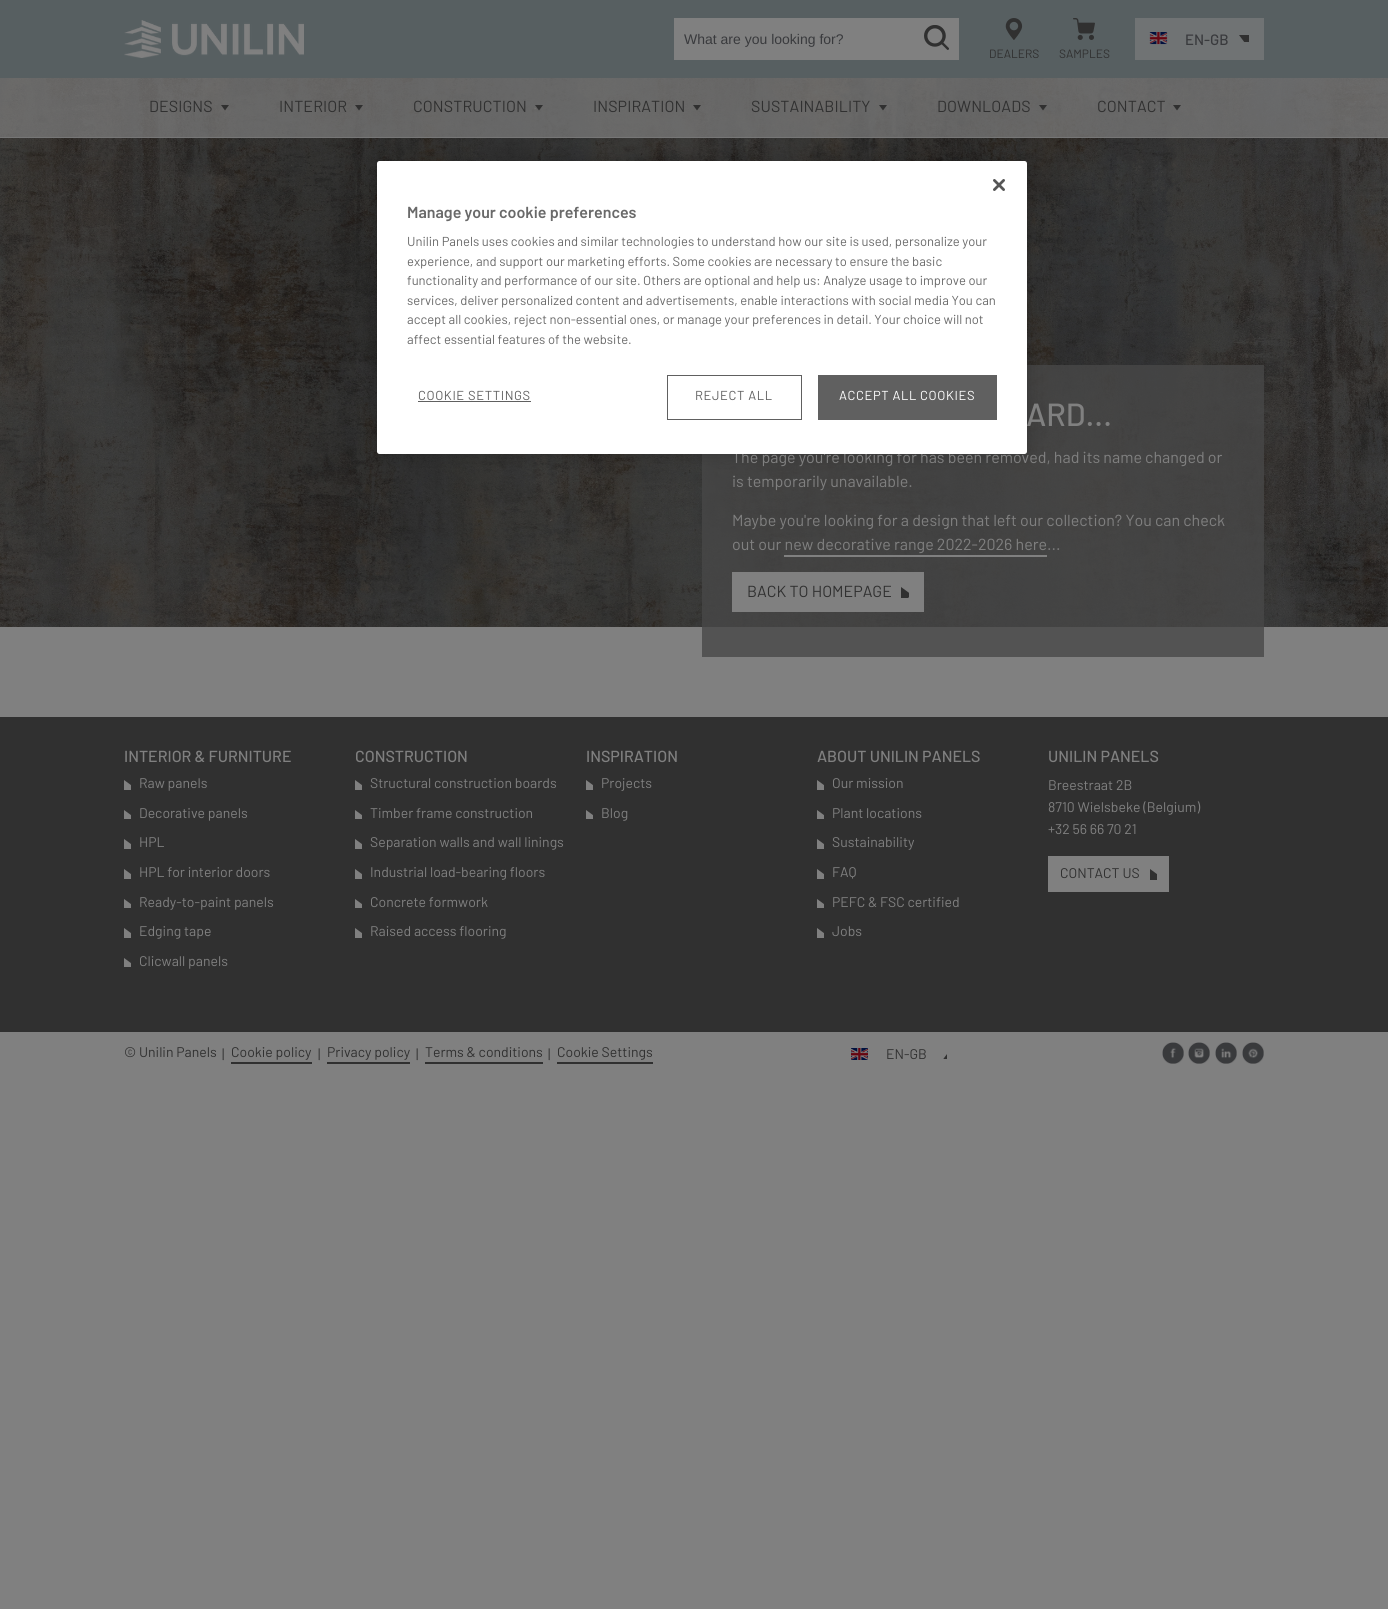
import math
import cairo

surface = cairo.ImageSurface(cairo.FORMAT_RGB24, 1388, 1609)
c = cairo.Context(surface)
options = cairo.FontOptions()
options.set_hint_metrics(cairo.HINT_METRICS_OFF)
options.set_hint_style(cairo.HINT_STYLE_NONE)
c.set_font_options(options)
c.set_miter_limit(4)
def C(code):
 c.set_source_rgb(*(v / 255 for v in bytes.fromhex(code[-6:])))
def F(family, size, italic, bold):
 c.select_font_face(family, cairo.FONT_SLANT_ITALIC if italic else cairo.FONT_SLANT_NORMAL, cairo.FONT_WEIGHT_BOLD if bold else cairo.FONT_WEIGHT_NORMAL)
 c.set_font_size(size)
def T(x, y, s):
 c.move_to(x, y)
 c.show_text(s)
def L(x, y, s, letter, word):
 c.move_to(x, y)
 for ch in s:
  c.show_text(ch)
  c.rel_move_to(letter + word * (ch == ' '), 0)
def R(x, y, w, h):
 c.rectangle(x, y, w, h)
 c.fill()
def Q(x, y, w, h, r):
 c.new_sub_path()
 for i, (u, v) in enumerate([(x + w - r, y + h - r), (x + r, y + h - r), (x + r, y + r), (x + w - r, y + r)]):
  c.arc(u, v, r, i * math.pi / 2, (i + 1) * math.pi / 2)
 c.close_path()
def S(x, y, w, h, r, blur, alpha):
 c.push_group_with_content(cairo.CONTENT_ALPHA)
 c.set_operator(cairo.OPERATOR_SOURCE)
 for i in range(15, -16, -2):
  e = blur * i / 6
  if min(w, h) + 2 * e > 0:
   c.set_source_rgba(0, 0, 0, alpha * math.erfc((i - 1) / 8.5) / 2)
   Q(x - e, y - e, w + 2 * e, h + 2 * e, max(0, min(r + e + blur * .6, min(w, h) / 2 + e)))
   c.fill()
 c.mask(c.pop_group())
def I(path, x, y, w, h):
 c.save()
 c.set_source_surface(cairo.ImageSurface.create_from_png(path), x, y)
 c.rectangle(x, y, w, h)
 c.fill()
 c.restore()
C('808080')
c.paint()
I('7.png',0,78,1388,549)
c.set_source_rgba(0.502,0.502,0.502,0.7)
R(0,78,1388,59)
C('767676')
R(0,137,1388,1)
C('575f61')
R(0,0,1388,78)
I('1.png',124,20,180,38)
C('808080')
R(674,18,285,42)
F('Liberation Sans',14,0,0)
C('393a3d')
T(684,44,'What are you looking for?')
I('2.png',924,25,25,25)
I('3.png',1005,18,18,22)
F('Barlow',12,0,0)
C('303030')
T(989,58,'DEALERS')
I('4.png',1073,18,22,22)
T(1059,58,'SAMPLES')
C('707374')
R(1135,18,129,42)
I('5.png',1149,32,19,13)
F('Barlow Medium',15,0,0)
C('393a3d')
T(1185,45,'EN-GB')
c.save()
c.rectangle(1239,35,10,7)
c.clip()
C('303030')
c.new_path()
c.move_to(1250.5,50.5)
c.line_to(1239,35)
c.line_to(1262,35)
c.close_path()
c.fill()
c.restore()
F('Barlow',16,0,0)
C('303030')
L(149,112,'DESIGNS',.1,0)
c.new_path()
c.move_to(225,110.5)
c.line_to(221,105)
c.line_to(229,105)
c.close_path()
c.fill()
L(279,112,'INTERIOR',.1,0)
c.new_path()
c.move_to(359,110.5)
c.line_to(355,105)
c.line_to(363,105)
c.close_path()
c.fill()
L(413,112,'CONSTRUCTION',.1,0)
c.new_path()
c.move_to(539,110.5)
c.line_to(535,105)
c.line_to(543,105)
c.close_path()
c.fill()
L(593,112,'INSPIRATION',.1,0)
c.new_path()
c.move_to(697,110.5)
c.line_to(693,105)
c.line_to(701,105)
c.close_path()
c.fill()
L(751,112,'SUSTAINABILITY',.1,0)
c.new_path()
c.move_to(883,110.5)
c.line_to(879,105)
c.line_to(887,105)
c.close_path()
c.fill()
L(937,112,'DOWNLOADS',.1,0)
c.new_path()
c.move_to(1043,110.5)
c.line_to(1039,105)
c.line_to(1047,105)
c.close_path()
c.fill()
L(1097,112,'CONTACT',.1,0)
c.new_path()
c.move_to(1177,110.5)
c.line_to(1173,105)
c.line_to(1181,105)
c.close_path()
c.fill()
c.set_source_rgba(0.282,0.282,0.282,0.8)
R(702,365,562,292)
C('000000')
S(377,161,650,293,2.5,9,.2)
C('808080')
T(732,463,'The page you\'re looking for has been removed, had its name changed or')
C('ffffff')
Q(377,161,650,293,2.5)
c.fill()
I('6.png',993,179,12,12)
F('Barlow SemiBold',16,0,0)
C('696969')
T(407,218,'Manage your cookie preferences')
F('Barlow',13,0,0)
T(407,246,'Unilin Panels uses cookies and similar technologies to understand how our site is used, personalize your')
T(407,266,'experience, and support our marketing efforts. Some cookies are necessary to ensure the basic')
T(407,285,'functionality and performance of our site. Others are optional and help us: Analyze usage to improve our')
T(407,305,'services, deliver personalized content and advertisements, enable interactions with social media You can')
T(407,324,'accept all cookies, reject non-essential ones, or manage your preferences in detail. Your choice will not')
T(407,344,'affect essential features of the website.')
C('606060')
L(418,400,'COOKIE SETTINGS',.6,0)
R(418,401,113,1)
c.rectangle(667.5,375.5,134,44)
c.set_line_width(1)
c.stroke()
L(695,400,'REJECT ALL',.6,0)
R(818,375,179,45)
C('ffffff')
L(839,400,'ACCEPT ALL COOKIES',.6,0)
F('Barlow Medium',32,0,0)
C('808080')
T(1026,426,'ARD...')
F('Barlow',16,0,0)
T(732,487,'is temporarily unavailable.')
T(732,526,'Maybe you\'re looking for a design that left our collection? You can check')
T(732,550,'out our new decorative range 2022-2026 here')
T(1047,550,'...')
R(784,555,263,2)
R(732,572,192,40)
C('303030')
T(747,597,'BACK TO HOMEPAGE')
c.save()
c.rectangle(901,587,8,11)
c.clip()
c.new_path()
c.move_to(912,595)
c.line_to(901,603)
c.line_to(901,587)
c.close_path()
c.fill()
c.restore()
R(0,717,1388,315)
F('Barlow Medium',16,0,0)
C('808080')
T(124,762,'INTERIOR & FURNITURE')
c.save()
c.rectangle(124,780,7,10)
c.clip()
c.new_path()
c.move_to(135,788)
c.line_to(124,796)
c.line_to(124,780)
c.close_path()
c.fill()
c.restore()
F('Barlow',14,0,0)
T(139,788,'Raw panels')
c.save()
c.rectangle(124,810,7,9)
c.clip()
c.new_path()
c.move_to(135,818)
c.line_to(124,826)
c.line_to(124,810)
c.close_path()
c.fill()
c.restore()
T(139,818,'Decorative panels')
c.save()
c.rectangle(124,839,7,10)
c.clip()
c.new_path()
c.move_to(135,847)
c.line_to(124,855)
c.line_to(124,839)
c.close_path()
c.fill()
c.restore()
T(139,847,'HPL')
c.save()
c.rectangle(124,869,7,10)
c.clip()
c.new_path()
c.move_to(135,877)
c.line_to(124,885)
c.line_to(124,869)
c.close_path()
c.fill()
c.restore()
T(139,877,'HPL for interior doors')
c.save()
c.rectangle(124,899,7,9)
c.clip()
c.new_path()
c.move_to(135,907)
c.line_to(124,915)
c.line_to(124,899)
c.close_path()
c.fill()
c.restore()
T(139,907,'Ready-to-paint panels')
c.save()
c.rectangle(124,928,7,10)
c.clip()
c.new_path()
c.move_to(135,936)
c.line_to(124,944)
c.line_to(124,928)
c.close_path()
c.fill()
c.restore()
T(139,936,'Edging tape')
c.save()
c.rectangle(124,958,7,9)
c.clip()
c.new_path()
c.move_to(135,966)
c.line_to(124,974)
c.line_to(124,958)
c.close_path()
c.fill()
c.restore()
T(139,966,'Clicwall panels')
F('Barlow Medium',16,0,0)
T(355,762,'CONSTRUCTION')
c.save()
c.rectangle(355,780,7,10)
c.clip()
c.new_path()
c.move_to(366,788)
c.line_to(355,796)
c.line_to(355,780)
c.close_path()
c.fill()
c.restore()
F('Barlow',14,0,0)
T(370,788,'Structural construction boards')
c.save()
c.rectangle(355,810,7,9)
c.clip()
c.new_path()
c.move_to(366,818)
c.line_to(355,826)
c.line_to(355,810)
c.close_path()
c.fill()
c.restore()
T(370,818,'Timber frame construction')
c.save()
c.rectangle(355,839,7,10)
c.clip()
c.new_path()
c.move_to(366,847)
c.line_to(355,855)
c.line_to(355,839)
c.close_path()
c.fill()
c.restore()
T(370,847,'Separation walls and wall linings')
c.save()
c.rectangle(355,869,7,10)
c.clip()
c.new_path()
c.move_to(366,877)
c.line_to(355,885)
c.line_to(355,869)
c.close_path()
c.fill()
c.restore()
T(370,877,'Industrial load-bearing floors')
c.save()
c.rectangle(355,899,7,9)
c.clip()
c.new_path()
c.move_to(366,907)
c.line_to(355,915)
c.line_to(355,899)
c.close_path()
c.fill()
c.restore()
T(370,907,'Concrete formwork')
c.save()
c.rectangle(355,928,7,10)
c.clip()
c.new_path()
c.move_to(366,936)
c.line_to(355,944)
c.line_to(355,928)
c.close_path()
c.fill()
c.restore()
T(370,936,'Raised access flooring')
F('Barlow Medium',16,0,0)
T(586,762,'INSPIRATION')
c.save()
c.rectangle(586,780,7,10)
c.clip()
c.new_path()
c.move_to(597,788)
c.line_to(586,796)
c.line_to(586,780)
c.close_path()
c.fill()
c.restore()
F('Barlow',14,0,0)
T(601,788,'Projects')
c.save()
c.rectangle(586,810,7,9)
c.clip()
c.new_path()
c.move_to(597,818)
c.line_to(586,826)
c.line_to(586,810)
c.close_path()
c.fill()
c.restore()
T(601,818,'Blog')
F('Barlow Medium',16,0,0)
T(817,762,'ABOUT UNILIN PANELS')
c.save()
c.rectangle(817,780,7,10)
c.clip()
c.new_path()
c.move_to(828,788)
c.line_to(817,796)
c.line_to(817,780)
c.close_path()
c.fill()
c.restore()
F('Barlow',14,0,0)
T(832,788,'Our mission')
c.save()
c.rectangle(817,810,7,9)
c.clip()
c.new_path()
c.move_to(828,818)
c.line_to(817,826)
c.line_to(817,810)
c.close_path()
c.fill()
c.restore()
T(832,818,'Plant locations')
c.save()
c.rectangle(817,839,7,10)
c.clip()
c.new_path()
c.move_to(828,847)
c.line_to(817,855)
c.line_to(817,839)
c.close_path()
c.fill()
c.restore()
T(832,847,'Sustainability')
c.save()
c.rectangle(817,869,7,10)
c.clip()
c.new_path()
c.move_to(828,877)
c.line_to(817,885)
c.line_to(817,869)
c.close_path()
c.fill()
c.restore()
T(832,877,'FAQ')
c.save()
c.rectangle(817,899,7,9)
c.clip()
c.new_path()
c.move_to(828,907)
c.line_to(817,915)
c.line_to(817,899)
c.close_path()
c.fill()
c.restore()
T(832,907,'PEFC & FSC certified')
c.save()
c.rectangle(817,928,7,10)
c.clip()
c.new_path()
c.move_to(828,936)
c.line_to(817,944)
c.line_to(817,928)
c.close_path()
c.fill()
c.restore()
T(832,936,'Jobs')
F('Barlow Medium',16,0,0)
T(1048,762,'UNILIN PANELS')
F('Barlow',14,0,0)
T(1048,790,'Breestraat 2B')
T(1048,812,'8710 Wielsbeke (Belgium)')
T(1048,834,'+32 56 66 70 21')
R(1048,856,121,36)
C('303030')
T(1060,878,'CONTACT US')
c.save()
c.rectangle(1150,869,7,11)
c.clip()
c.new_path()
c.move_to(1161,877)
c.line_to(1150,885)
c.line_to(1150,869)
c.close_path()
c.fill()
c.restore()
T(124,1057,'© Unilin Panels')
T(222,1059,'|')
T(231,1057,'Cookie policy')
R(231,1062,81,2)
T(318,1059,'|')
T(327,1057,'Privacy policy')
R(327,1062,83,2)
T(416,1059,'|')
T(425,1057,'Terms & conditions')
R(425,1062,118,2)
T(548,1059,'|')
T(557,1057,'Cookie Settings')
R(557,1062,96,2)
I('8.png',851,1048,17,12)
T(886,1059,'EN-GB')
c.save()
c.rectangle(937,1052,10,7)
c.clip()
c.new_path()
c.move_to(948.5,1052)
c.line_to(937,1067.5)
c.line_to(960,1067.5)
c.close_path()
c.fill()
c.restore()
I('9.png',1162,1042,22,22)
I('10.png',1188,1042,22,22)
I('11.png',1215,1042,22,22)
I('12.png',1242,1042,22,22)
surface.write_to_png('o.png')
